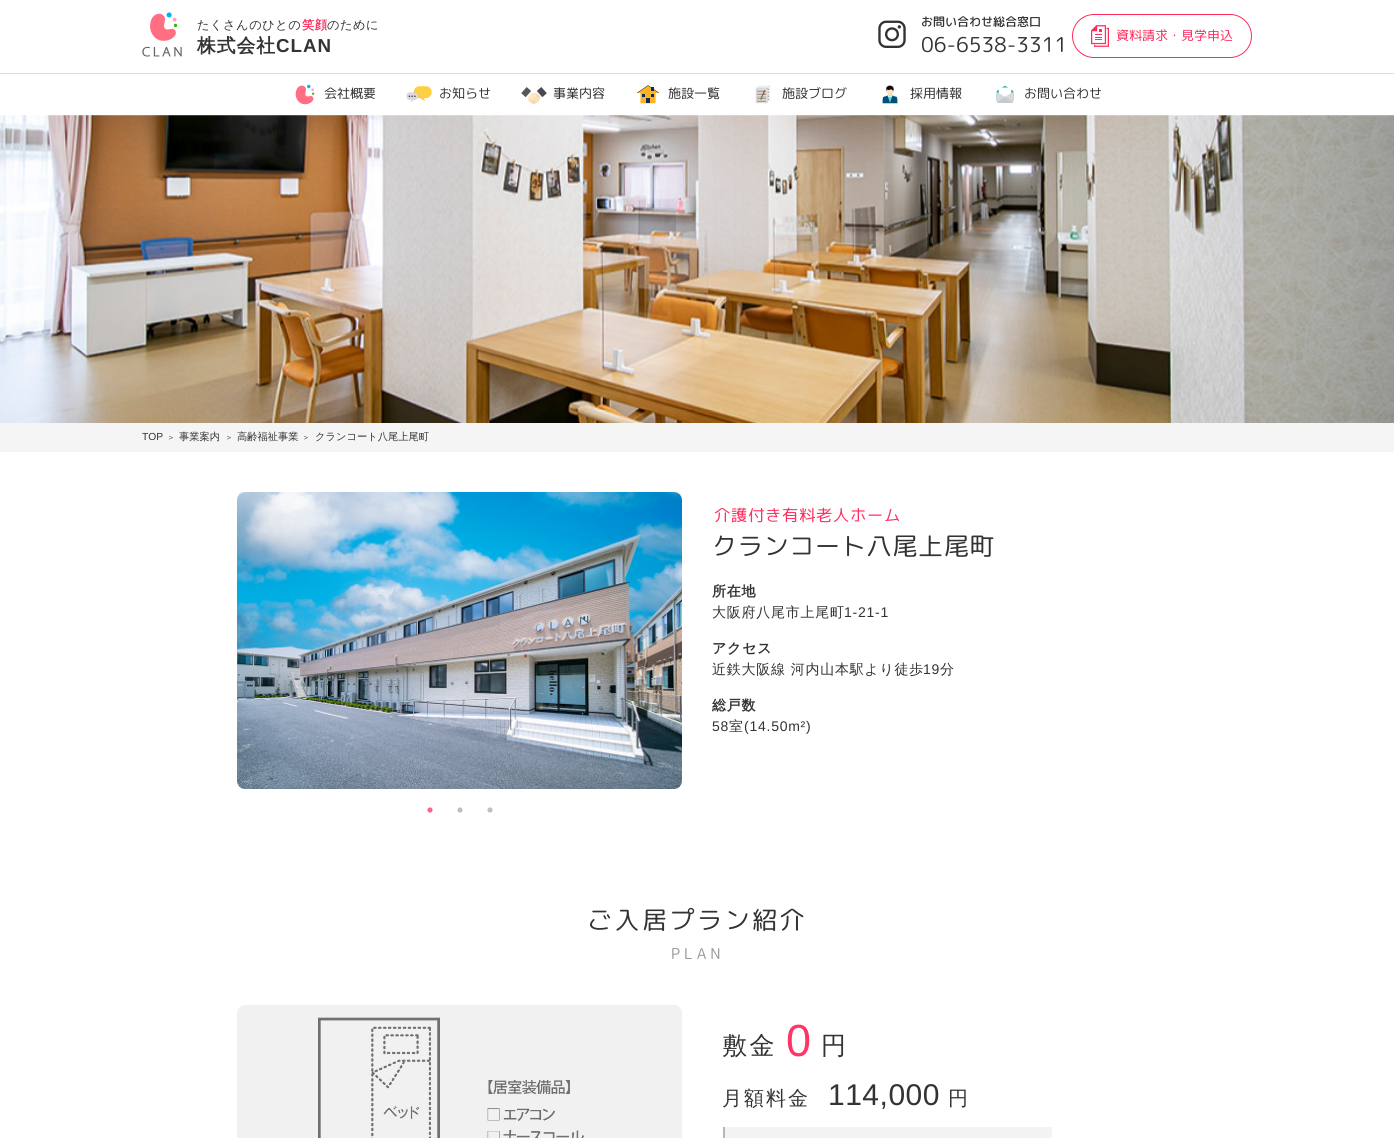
import math
import cairo

surface = cairo.ImageSurface(cairo.FORMAT_RGB24, 1394, 1138)
c = cairo.Context(surface)
options = cairo.FontOptions()
options.set_hint_metrics(cairo.HINT_METRICS_OFF)
options.set_hint_style(cairo.HINT_STYLE_NONE)
c.set_font_options(options)
c.set_miter_limit(4)
def C(code):
 c.set_source_rgb(*(v / 255 for v in bytes.fromhex(code[-6:])))
def F(family, size, italic, bold):
 c.select_font_face(family, cairo.FONT_SLANT_ITALIC if italic else cairo.FONT_SLANT_NORMAL, cairo.FONT_WEIGHT_BOLD if bold else cairo.FONT_WEIGHT_NORMAL)
 c.set_font_size(size)
def T(x, y, s):
 c.move_to(x, y)
 c.show_text(s)
def L(x, y, s, letter, word):
 c.move_to(x, y)
 for ch in s:
  c.show_text(ch)
  c.rel_move_to(letter + word * (ch == ' '), 0)
def R(x, y, w, h):
 c.rectangle(x, y, w, h)
 c.fill()
def Q(x, y, w, h, r):
 c.new_sub_path()
 for i, (u, v) in enumerate([(x + w - r, y + h - r), (x + r, y + h - r), (x + r, y + r), (x + w - r, y + r)]):
  c.arc(u, v, r, i * math.pi / 2, (i + 1) * math.pi / 2)
 c.close_path()
def I(path, x, y, w, h):
 c.save()
 c.set_source_surface(cairo.ImageSurface.create_from_png(path), x, y)
 c.rectangle(x, y, w, h)
 c.fill()
 c.restore()
C('ffffff')
c.paint()
I('1.png',142,12,40,45)
F('WenQuanYi Zen Hei Medium',12.25,0,0)
C('333333')
L(197,29,'たくさんのひとの',.5,0)
F('WenQuanYi Zen Hei',12.25,0,1)
C('ff2d5e')
L(302,29,'笑顔',.5,0)
F('WenQuanYi Zen Hei Medium',12.25,0,0)
C('333333')
L(327,29,'のために',.5,0)
F('WenQuanYi Zen Hei',18.75,0,1)
L(197,52,'株式会社',1,0)
F('Liberation Sans',18.75,0,1)
L(276,52,'CLAN',1,0)
I('2.png',878,20,28,28)
F('Rounded Mplus 1c Medium',12,0,0)
T(921,26,'お問い合わせ総合窓口')
F('Rounded Mplus 1c',20.5,0,0)
T(921,52,'06-6538-3311')
Q(1072.5,14.5,179,43,21.5)
C('ff2d5c')
c.set_line_width(1)
c.stroke()
I('3.png',1091,25,18,22)
F('Rounded Mplus 1c',13,0,0)
C('ff2d5e')
T(1116,40,'資料請求・見学申込')
C('dddddd')
R(0,73,1394,1)
I('4.png',295,84,20,21)
C('333333')
T(324,98,'会社概要')
I('5.png',406,86,26,16)
T(439,98,'お知らせ')
I('6.png',521,87,26,18)
T(553,98,'事業内容')
I('7.png',637,85,22,19)
T(668,98,'施設一覧')
I('8.png',755,85,16,19)
T(782,98,'施設ブログ')
I('9.png',882,85,16,19)
T(910,98,'採用情報')
I('10.png',996,86,18,17)
T(1024,98,'お問い合わせ')
I('11.png',0,115,1394,308)
C('f5f5f5')
R(0,423,1394,29)
F('Liberation Sans',10.25,0,0)
C('333333')
T(142,440,'TOP')
F('WenQuanYi Zen Hei Medium',8,0,0)
T(167,440,'＞')
F('WenQuanYi Zen Hei Medium',10.25,0,0)
T(179,440,'事業案内')
F('WenQuanYi Zen Hei Medium',8,0,0)
T(225,440,'＞')
F('WenQuanYi Zen Hei Medium',10.25,0,0)
T(237,440,'高齢福祉事業')
F('WenQuanYi Zen Hei Medium',8,0,0)
T(302,440,'＞')
F('WenQuanYi Zen Hei Medium',10.25,0,0)
T(315,440,'クランコート八尾上尾町')
I('12.png',237,492,445,297)
I('13.png',427,807,6,6)
I('14.png',457,807,6,6)
I('14.png',487,807,6,6)
F('Rounded Mplus 1c',16.25,0,0)
C('ff2d5e')
L(714,521,'介護付き有料老人ホーム',.75,0)
F('Rounded Mplus 1c',25,0,0)
C('333333')
L(712,555,'クランコート八尾上尾町',.75,0)
F('WenQuanYi Zen Hei',14,0,1)
L(712,596,'所在地',.75,0)
F('WenQuanYi Zen Hei Medium',14,0,0)
L(712,617,'大阪府八尾市上尾町',.75,0)
F('Liberation Sans',14,0,0)
L(844,617,'1-21-1',.75,0)
F('WenQuanYi Zen Hei',14,0,1)
L(712,653,'アクセス',.75,0)
F('WenQuanYi Zen Hei Medium',14,0,0)
L(712,674,'近鉄大阪線 河内山本駅より徒歩',.75,0)
F('Liberation Sans',14,0,0)
L(923,674,'19',.75,0)
F('WenQuanYi Zen Hei Medium',14,0,0)
L(940,674,'分',.75,0)
F('WenQuanYi Zen Hei',14,0,1)
L(712,710,'総戸数',.75,0)
F('Liberation Sans',14,0,0)
L(712,731,'58',.75,0)
F('WenQuanYi Zen Hei Medium',14,0,0)
L(729,731,'室',.75,0)
F('Liberation Sans',14,0,0)
L(744,731,'(14.50m²)',.75,0)
F('Rounded Mplus 1c',25,0,0)
L(587,929,'ご入居プラン紹介',2.5,0)
F('Rounded Mplus 1c',15,0,0)
C('959595')
L(671,959,'PLAN',4,0)
I('15.png',237,1005,445,133)
F('WenQuanYi Zen Hei Medium',25,0,0)
C('333333')
L(722,1054,'敷金',2.5,0)
F('Liberation Sans',45,0,0)
C('ff3564')
L(786,1056,'0',1,0)
F('WenQuanYi Zen Hei Medium',25,0,0)
C('333333')
L(821,1054,'円',2.5,0)
F('WenQuanYi Zen Hei Medium',20,0,0)
L(722,1105,'月額料金',2,0)
F('Liberation Sans',30,0,0)
L(828,1105,'114,000',.5,0)
F('WenQuanYi Zen Hei Medium',20,0,0)
L(948,1105,'円',2,0)
C('f3f3f3')
R(725,1127,327,11)
C('b7b7b7')
R(723,1127,2,11)
surface.write_to_png('o.png')
